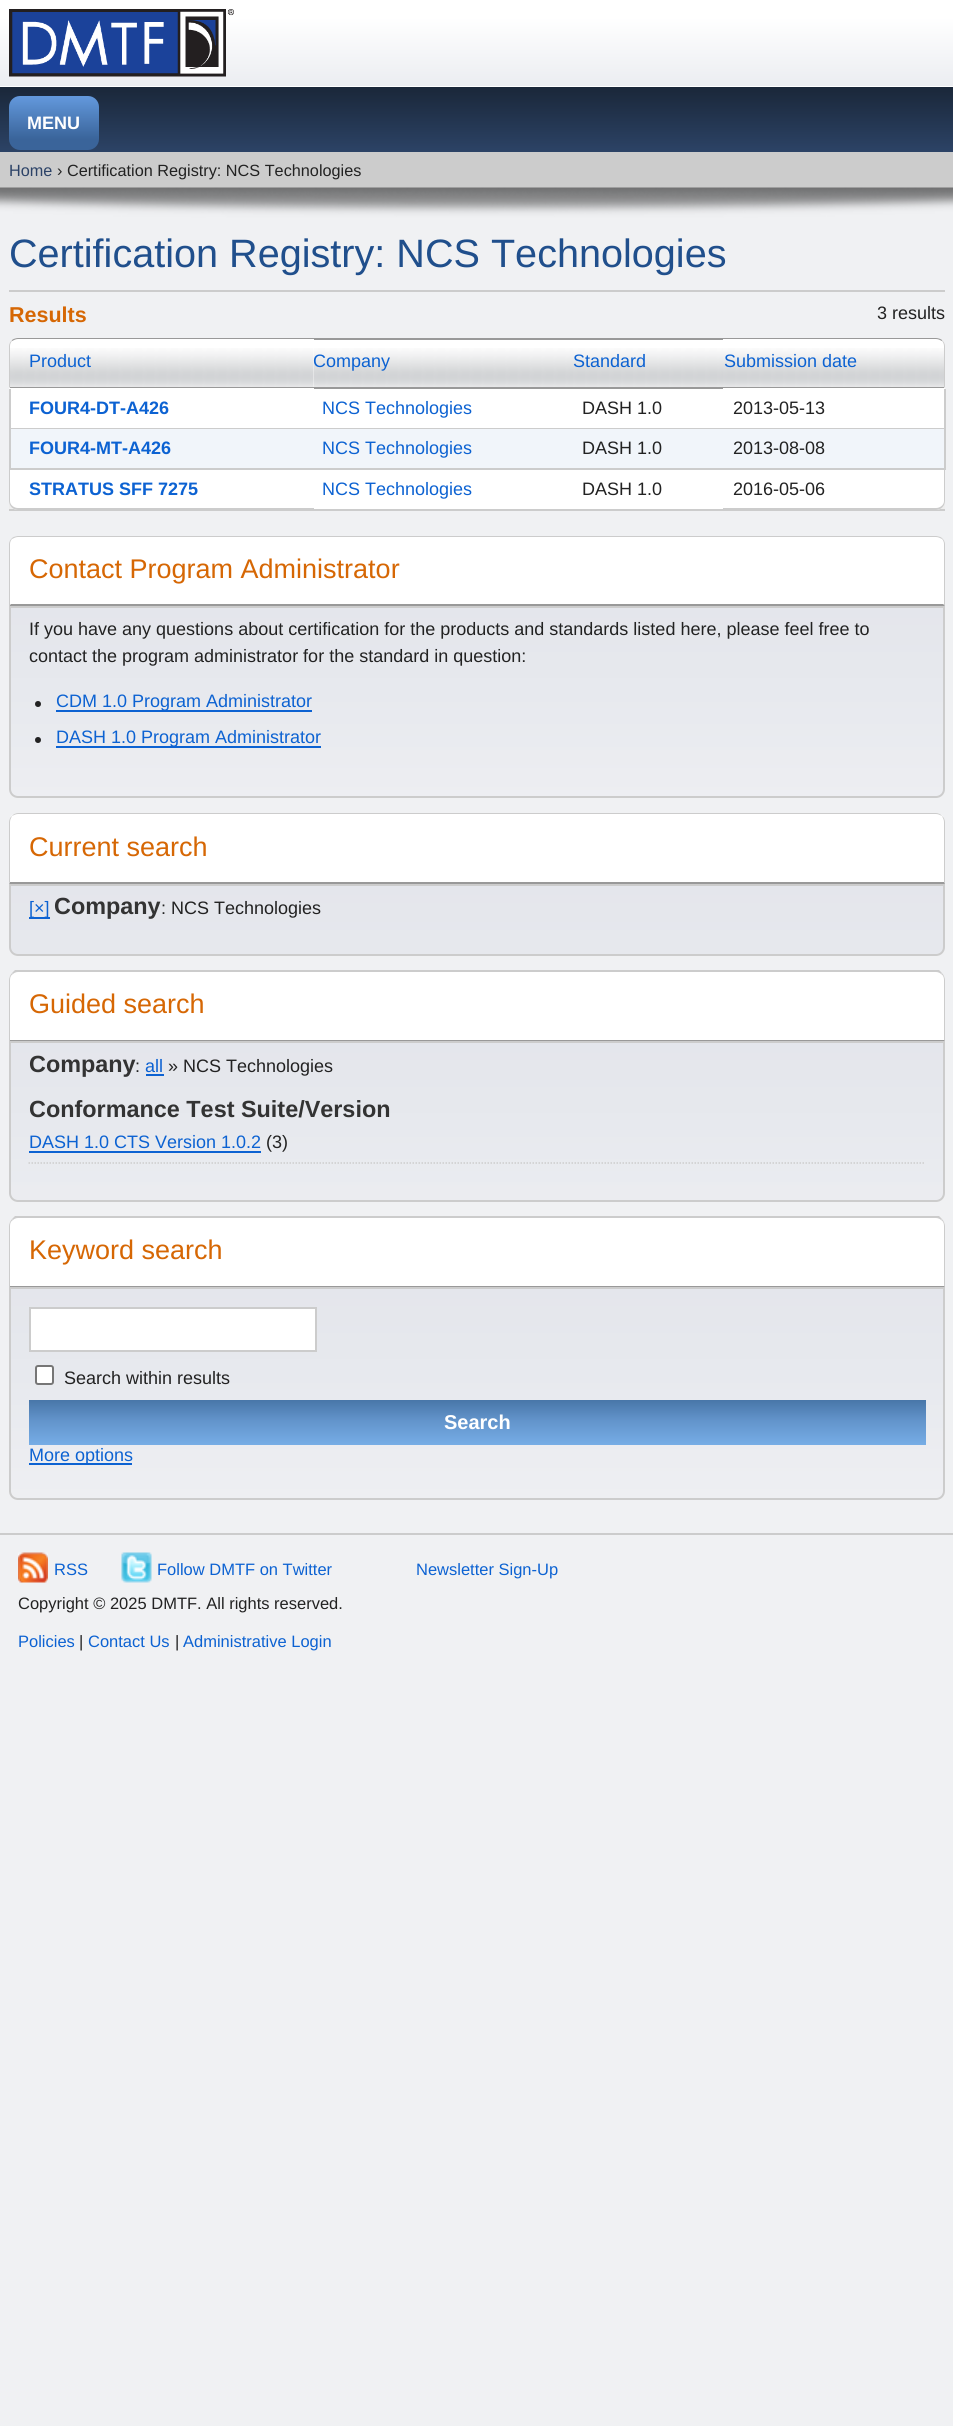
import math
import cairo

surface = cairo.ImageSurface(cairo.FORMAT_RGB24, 953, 2426)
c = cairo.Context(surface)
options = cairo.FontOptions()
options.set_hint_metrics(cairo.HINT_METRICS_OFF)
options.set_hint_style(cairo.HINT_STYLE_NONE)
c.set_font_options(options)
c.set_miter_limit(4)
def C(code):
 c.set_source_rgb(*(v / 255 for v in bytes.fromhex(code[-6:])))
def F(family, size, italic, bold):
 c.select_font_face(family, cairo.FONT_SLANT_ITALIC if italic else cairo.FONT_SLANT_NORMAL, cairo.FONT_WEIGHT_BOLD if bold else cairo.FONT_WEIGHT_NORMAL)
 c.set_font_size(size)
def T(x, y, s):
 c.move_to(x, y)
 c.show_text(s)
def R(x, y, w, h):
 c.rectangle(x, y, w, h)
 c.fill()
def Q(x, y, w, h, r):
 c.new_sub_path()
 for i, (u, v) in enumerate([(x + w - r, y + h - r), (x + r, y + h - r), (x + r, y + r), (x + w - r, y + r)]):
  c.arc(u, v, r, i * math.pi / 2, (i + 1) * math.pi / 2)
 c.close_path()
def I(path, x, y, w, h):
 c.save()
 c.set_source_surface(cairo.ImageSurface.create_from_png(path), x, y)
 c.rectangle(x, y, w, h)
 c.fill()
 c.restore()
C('f0f1f3')
c.paint()
gradient = cairo.LinearGradient(477,0,477,86)
gradient.add_color_stop_rgba(.2,1,1,1,1)
gradient.add_color_stop_rgba(1,0.922,0.929,0.945,1)
c.set_source(gradient)
R(0,0,953,86)
C('ffffff')
R(0,86,953,1)
I('1.png',9,9,225,68)
gradient = cairo.LinearGradient(477,87,477,152)
gradient.add_color_stop_rgba(0,0.102,0.153,0.224,1)
gradient.add_color_stop_rgba(1,0.173,0.263,0.4,1)
c.set_source(gradient)
R(0,87,953,65)
gradient = cairo.LinearGradient(54,96,54,150)
gradient.add_color_stop_rgba(0,0.388,0.6,0.867,1)
gradient.add_color_stop_rgba(.8,0.227,0.392,0.604,1)
c.set_source(gradient)
Q(9,96,90,54,11)
c.fill()
F('Liberation Sans',18,0,1)
C('ffffff')
T(27,129,'MENU')
C('cccccc')
R(0,152,953,36)
I('2.png',0,187,953,32)
F('Liberation Sans',16.25,0,0)
C('2c4267')
T(9,176,'Home')
C('222222')
T(57,176,'› Certification Registry: NCS Technologies')
C('cccccc')
R(9,290,936,2)
F('Liberation Sans',39.6,0,0)
C('204f8c')
T(9,267,'Certification Registry: NCS Technologies')
F('Liberation Sans',21.5,0,1)
C('d66704')
T(9,322,'Results')
C('ffffff')
c.new_path()
c.move_to(18,338)
c.line_to(314,338)
c.line_to(314,389)
c.line_to(9,389)
c.line_to(9,347)
c.curve_to(9,342,13,338,18,338)
c.close_path()
c.fill()
I('3.png',10,348,304,39)
C('999999')
c.new_path()
c.move_to(18,338)
c.line_to(314,338)
c.line_to(314,339)
c.line_to(18,339)
c.curve_to(16,339,14,340,12,341)
c.line_to(12,340)
c.curve_to(13,339,16,338,18,338)
c.close_path()
c.fill()
R(10,387,304,1)
C('cccccc')
c.new_path()
c.move_to(10,387)
c.line_to(9,388)
c.line_to(9,346)
c.curve_to(9,344,10,342,12,340)
c.line_to(12,341)
c.curve_to(11,342,10,344,10,346)
c.close_path()
c.fill()
F('Liberation Sans',18,0,0)
C('0c62d2')
T(29,367,'Product')
C('ffffff')
R(314,340,409,8)
I('4.png',313,348,260,39)
C('999999')
R(314,338,409,2)
R(314,387,409,2)
C('0c62d2')
T(313,367,'Company')
I('5.png',573,348,150,39)
T(573,367,'Standard')
C('ffffff')
c.new_path()
c.move_to(723,338)
c.line_to(936,338)
c.curve_to(941,338,945,342,945,347)
c.line_to(945,389)
c.line_to(723,389)
c.close_path()
c.fill()
I('6.png',723,348,221,39)
C('999999')
c.new_path()
c.move_to(723,339)
c.line_to(936,339)
c.curve_to(938,339,940,340,942,341)
c.line_to(942,340)
c.curve_to(941,339,938,338,936,338)
c.line_to(723,338)
c.close_path()
c.fill()
C('cccccc')
c.new_path()
c.move_to(942,340)
c.curve_to(944,342,945,344,945,346)
c.line_to(945,388)
c.line_to(944,387)
c.line_to(944,346)
c.curve_to(944,344,943,342,942,341)
c.close_path()
c.fill()
C('999999')
R(723,387,221,1)
C('0c62d2')
T(724,367,'Submission date')
C('ffffff')
R(11,389,933,39)
C('cccccc')
R(9,428,714,1)
R(9,389,2,40)
F('Liberation Sans',18,0,1)
C('0c62d2')
T(29,414,'FOUR4-DT-A426')
F('Liberation Sans',18,0,0)
T(322,414,'NCS Technologies')
C('222222')
T(582,414,'DASH 1.0')
C('cccccc')
R(944,389,2,81)
R(723,428,222,1)
C('222222')
T(733,414,'2013-05-13')
C('f1f5fa')
R(11,429,933,39)
C('cccccc')
R(9,468,936,2)
R(9,429,2,41)
F('Liberation Sans',18,0,1)
C('0c62d2')
T(29,454,'FOUR4-MT-A426')
F('Liberation Sans',18,0,0)
T(322,454,'NCS Technologies')
C('222222')
T(582,454,'DASH 1.0')
T(733,454,'2013-08-08')
C('eeeeee')
R(9,501,936,8)
C('cccccc')
R(9,509,936,2)
C('ffffff')
c.new_path()
c.move_to(9,470)
c.line_to(314,470)
c.line_to(314,510)
c.line_to(18,510)
c.curve_to(13,510,9,506,9,501)
c.close_path()
c.fill()
C('cccccc')
c.set_fill_rule(cairo.FILL_RULE_EVEN_ODD)
c.new_path()
c.move_to(9,470)
c.line_to(314,470)
c.line_to(314,510)
c.line_to(18,510)
c.curve_to(13,510,9,506,9,501)
c.close_path()
c.move_to(10,470)
c.line_to(314,470)
c.line_to(314,508)
c.line_to(18,508)
c.curve_to(14,508,10,505,10,501)
c.close_path()
c.fill()
F('Liberation Sans',18,0,1)
C('0c62d2')
T(29,495,'STRATUS SFF 7275')
C('ffffff')
R(314,470,409,39)
F('Liberation Sans',18,0,0)
C('0c62d2')
T(322,495,'NCS Technologies')
C('222222')
T(582,495,'DASH 1.0')
C('ffffff')
c.new_path()
c.move_to(723,470)
c.line_to(945,470)
c.line_to(945,501)
c.curve_to(945,506,941,510,936,510)
c.line_to(723,510)
c.close_path()
c.fill()
C('cccccc')
c.new_path()
c.move_to(723,470)
c.line_to(945,470)
c.line_to(945,501)
c.curve_to(945,506,941,510,936,510)
c.line_to(723,510)
c.close_path()
c.move_to(723,470)
c.line_to(944,470)
c.line_to(944,501)
c.curve_to(944,505,940,508,936,508)
c.line_to(723,508)
c.close_path()
c.fill()
C('222222')
T(733,495,'2016-05-06')
T(877,319,'3 results')
C('ffffff')
c.new_path()
c.move_to(18,536)
c.line_to(936,536)
c.curve_to(941,536,945,540,945,545)
c.line_to(945,606)
c.line_to(9,606)
c.line_to(9,545)
c.curve_to(9,540,13,536,18,536)
c.close_path()
c.fill()
C('cccccc')
c.set_fill_rule(cairo.FILL_RULE_WINDING)
c.new_path()
c.move_to(18,536)
c.curve_to(16,536,13,537,12,538)
c.line_to(12,539)
c.curve_to(14,538,16,537,18,537)
c.line_to(936,537)
c.curve_to(938,537,940,538,942,539)
c.line_to(942,538)
c.curve_to(941,537,938,536,936,536)
c.close_path()
c.fill()
c.new_path()
c.move_to(942,538)
c.curve_to(944,540,945,542,945,544)
c.line_to(945,606)
c.line_to(943,604)
c.line_to(944,604)
c.line_to(944,544)
c.curve_to(944,542,943,540,942,539)
c.close_path()
c.fill()
C('999999')
c.new_path()
c.move_to(945,606)
c.line_to(943,604)
c.line_to(11,604)
c.line_to(9,606)
c.close_path()
c.fill()
C('cccccc')
c.new_path()
c.move_to(9,606)
c.line_to(11,604)
c.line_to(10,604)
c.line_to(10,544)
c.curve_to(10,542,11,540,12,539)
c.line_to(12,538)
c.curve_to(10,540,9,542,9,544)
c.close_path()
c.fill()
F('Liberation Sans',27,0,0)
C('d66704')
T(29,578,'Contact Program Administrator')
I('7.png',9,608,936,190)
c.new_path()
c.move_to(10,607)
c.line_to(944,607)
c.line_to(944,789)
c.curve_to(944,793.5,940.5,797,936,797)
c.line_to(18,797)
c.curve_to(13.5,797,10,793.5,10,789)
c.close_path()
C('cccccc')
c.stroke()
F('Liberation Sans',18,0,0)
C('222222')
T(29,635,'If you have any questions about certification for the products and standards listed here, please feel free to')
T(29,662,'contact the program administrator for the standard in question:')
c.new_path()
c.arc(38,704,3,0,2 * math.pi)
c.fill()
C('0c62d2')
R(56,710,256,2)
T(56,707,'CDM 1.0 Program Administrator')
C('222222')
c.new_path()
c.arc(38,740,3,0,2 * math.pi)
c.fill()
C('0c62d2')
R(56,746,265,2)
T(56,743,'DASH 1.0 Program Administrator')
C('ffffff')
c.new_path()
c.move_to(18,813)
c.line_to(936,813)
c.curve_to(941,813,945,817,945,822)
c.line_to(945,884)
c.line_to(9,884)
c.line_to(9,822)
c.curve_to(9,817,13,813,18,813)
c.close_path()
c.fill()
C('cccccc')
c.new_path()
c.move_to(18,813)
c.curve_to(16,813,13,814,12,816)
c.curve_to(14,815,16,814,18,814)
c.line_to(936,814)
c.curve_to(938,814,940,815,942,816)
c.curve_to(941,814,938,813,936,813)
c.close_path()
c.fill()
c.new_path()
c.move_to(945,884)
c.line_to(945,822)
c.curve_to(945,820,944,817,942,816)
c.curve_to(943,818,944,820,944,822)
c.line_to(944,882)
c.close_path()
c.fill()
C('999999')
c.new_path()
c.move_to(945,884)
c.line_to(9,884)
c.line_to(10,882)
c.line_to(944,882)
c.close_path()
c.fill()
C('cccccc')
c.new_path()
c.move_to(9,884)
c.line_to(10,882)
c.line_to(10,822)
c.curve_to(10,820,11,818,12,816)
c.curve_to(10,817,9,820,9,822)
c.close_path()
c.fill()
F('Liberation Sans',27,0,0)
C('d66704')
T(29,856,'Current search')
I('8.png',9,886,936,70)
c.new_path()
c.move_to(10,885)
c.line_to(944,885)
c.line_to(944,947)
c.curve_to(944,951.5,940.5,955,936,955)
c.line_to(18,955)
c.curve_to(13.5,955,10,951.5,10,947)
c.close_path()
C('cccccc')
c.stroke()
C('0c62d2')
R(29,917,21,2)
F('Liberation Sans',18,0,0)
T(29,914,'[×]')
F('Liberation Sans',23.4,0,1)
C('333333')
T(54,914,'Company')
F('Liberation Sans',18,0,0)
C('222222')
T(161,914,': NCS Technologies')
C('ffffff')
c.new_path()
c.move_to(18,971)
c.line_to(936,971)
c.curve_to(941,971,945,975,945,980)
c.line_to(945,1041)
c.line_to(9,1041)
c.line_to(9,980)
c.curve_to(9,975,13,971,18,971)
c.close_path()
c.fill()
C('cccccc')
c.new_path()
c.move_to(18,972)
c.curve_to(16,972,14,973,13,974)
c.line_to(12,973)
c.line_to(15,970)
c.line_to(939,970)
c.line_to(942,973)
c.line_to(941,974)
c.curve_to(940,973,938,972,936,972)
c.close_path()
c.fill()
c.new_path()
c.move_to(945,1041)
c.line_to(945,980)
c.curve_to(945,978,944,975,942,973)
c.line_to(941,974)
c.curve_to(943,975,944,977,944,980)
c.line_to(944,1040)
c.close_path()
c.fill()
C('999999')
c.new_path()
c.move_to(945,1041)
c.line_to(944,1040)
c.line_to(10,1040)
c.line_to(9,1041)
c.close_path()
c.fill()
C('cccccc')
c.new_path()
c.move_to(9,1041)
c.line_to(10,1040)
c.line_to(10,980)
c.curve_to(10,977,11,975,13,974)
c.line_to(12,973)
c.curve_to(10,975,9,978,9,980)
c.close_path()
c.fill()
F('Liberation Sans',27,0,0)
C('d66704')
T(29,1013,'Guided search')
I('9.png',9,1043,936,159)
c.new_path()
c.move_to(10,1042)
c.line_to(944,1042)
c.line_to(944,1193)
c.curve_to(944,1197.5,940.5,1201,936,1201)
c.line_to(18,1201)
c.curve_to(13.5,1201,10,1197.5,10,1193)
c.close_path()
C('cccccc')
c.stroke()
F('Liberation Sans',23.4,0,1)
C('333333')
T(29,1072,'Company')
F('Liberation Sans',18,0,0)
C('222222')
T(135,1072,':')
C('0c62d2')
T(145,1072,'all')
R(146,1074,18,2)
C('222222')
T(168,1072,'» NCS Technologies')
F('Liberation Sans',23.4,0,1)
C('333333')
T(29,1117,'Conformance Test Suite/Version')
c.new_path()
c.move_to(28.5,1163)
c.line_to(925.5,1163)
C('cccccc')
c.set_line_width(1.5)
c.set_dash([1.5,1.5])
c.stroke()
F('Liberation Sans',18,0,0)
C('0c62d2')
T(29,1148,'DASH 1.0 CTS Version 1.0.2')
R(29,1151,232,2)
C('222222')
T(266,1148,'(3)')
C('ffffff')
c.new_path()
c.move_to(18,1217)
c.line_to(936,1217)
c.curve_to(941,1217,945,1221,945,1226)
c.line_to(945,1287)
c.line_to(9,1287)
c.line_to(9,1226)
c.curve_to(9,1221,13,1217,18,1217)
c.close_path()
c.fill()
C('cccccc')
c.new_path()
c.move_to(18,1218)
c.curve_to(16,1218,14,1219,13,1220)
c.line_to(12,1219)
c.line_to(15,1216)
c.line_to(939,1216)
c.line_to(942,1219)
c.line_to(941,1220)
c.curve_to(940,1219,938,1218,936,1218)
c.close_path()
c.fill()
c.new_path()
c.move_to(945,1287)
c.line_to(945,1226)
c.curve_to(945,1224,944,1221,942,1219)
c.line_to(941,1220)
c.curve_to(943,1221,944,1223,944,1226)
c.line_to(944,1286)
c.close_path()
c.fill()
C('999999')
c.new_path()
c.move_to(945,1287)
c.line_to(944,1286)
c.line_to(10,1286)
c.line_to(9,1287)
c.close_path()
c.fill()
C('cccccc')
c.new_path()
c.move_to(9,1287)
c.line_to(10,1286)
c.line_to(10,1226)
c.curve_to(10,1223,11,1221,13,1220)
c.line_to(12,1219)
c.curve_to(10,1221,9,1224,9,1226)
c.close_path()
c.fill()
F('Liberation Sans',27,0,0)
C('d66704')
T(29,1259,'Keyword search')
I('10.png',9,1289,936,211)
c.new_path()
c.move_to(10,1288)
c.line_to(944,1288)
c.line_to(944,1491)
c.curve_to(944,1495.5,940.5,1499,936,1499)
c.line_to(18,1499)
c.curve_to(13.5,1499,10,1495.5,10,1491)
c.close_path()
C('cccccc')
c.set_line_width(2)
c.set_dash([])
c.stroke()
C('ffffff')
c.rectangle(30,1308,286,43)
c.fill_preserve()
C('cccccc')
c.stroke()
C('ffffff')
Q(36,1366,17,18,2)
c.fill_preserve()
C('767676')
c.stroke()
F('Liberation Sans',18,0,0)
C('222222')
T(64,1384,'Search within results')
gradient = cairo.LinearGradient(477,1400,477,1445)
gradient.add_color_stop_rgba(0,0.282,0.463,0.659,1)
gradient.add_color_stop_rgba(.44,0.384,0.576,0.792,1)
gradient.add_color_stop_rgba(1,0.463,0.675,0.902,1)
c.set_source(gradient)
R(29,1400,897,45)
F('Liberation Sans',20,0,1)
C('ffffff')
T(444,1429,'Search')
C('0c62d2')
R(29,1463,103,2)
F('Liberation Sans',18,0,0)
T(29,1461,'More options')
C('cccccc')
R(0,1533,953,2)
I('11.png',18,1552,30,31)
F('Liberation Sans',16.5,0,0)
C('0c62d2')
T(54,1575,'RSS')
I('12.png',121,1552,31,31)
T(157,1575,'Follow DMTF on Twitter')
T(416,1575,'Newsletter Sign-Up')
C('222222')
T(18,1609,'Copyright © 2025 DMTF. All rights reserved.')
C('0c62d2')
T(18,1647,'Policies')
C('222222')
T(79,1647,'|')
C('0c62d2')
T(88,1647,'Contact Us')
C('222222')
T(175,1647,'|')
C('0c62d2')
T(183,1647,'Administrative Login')
surface.write_to_png('o.png')
